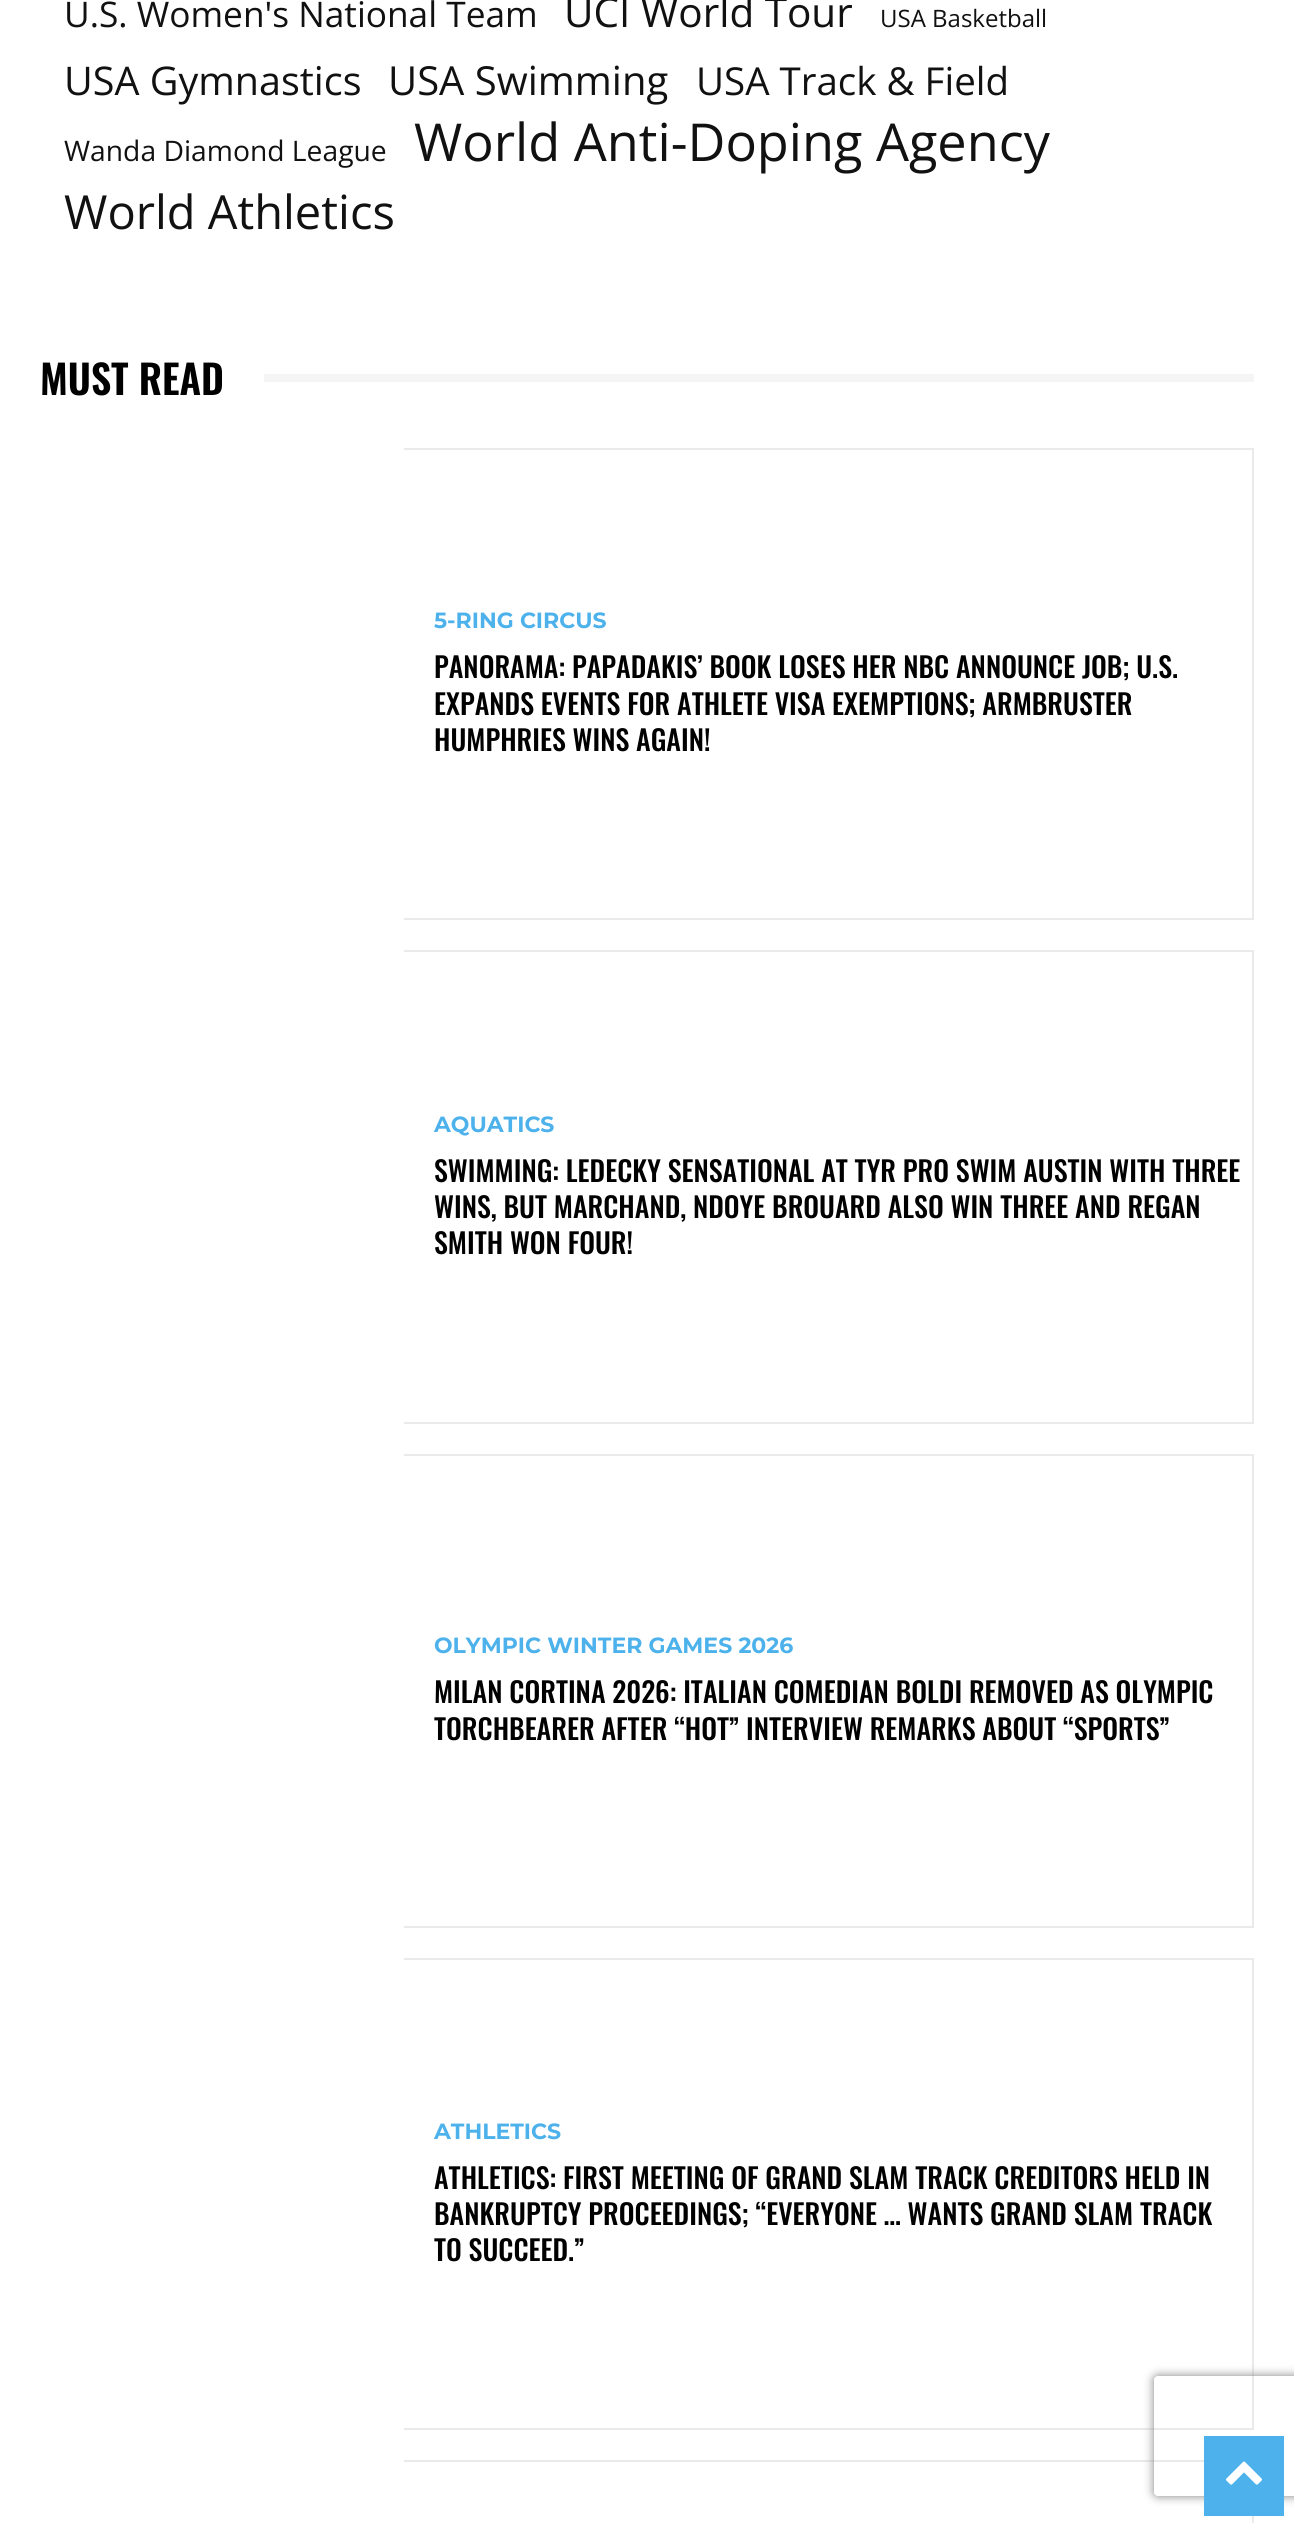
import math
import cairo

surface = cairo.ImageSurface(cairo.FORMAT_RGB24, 1294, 2523)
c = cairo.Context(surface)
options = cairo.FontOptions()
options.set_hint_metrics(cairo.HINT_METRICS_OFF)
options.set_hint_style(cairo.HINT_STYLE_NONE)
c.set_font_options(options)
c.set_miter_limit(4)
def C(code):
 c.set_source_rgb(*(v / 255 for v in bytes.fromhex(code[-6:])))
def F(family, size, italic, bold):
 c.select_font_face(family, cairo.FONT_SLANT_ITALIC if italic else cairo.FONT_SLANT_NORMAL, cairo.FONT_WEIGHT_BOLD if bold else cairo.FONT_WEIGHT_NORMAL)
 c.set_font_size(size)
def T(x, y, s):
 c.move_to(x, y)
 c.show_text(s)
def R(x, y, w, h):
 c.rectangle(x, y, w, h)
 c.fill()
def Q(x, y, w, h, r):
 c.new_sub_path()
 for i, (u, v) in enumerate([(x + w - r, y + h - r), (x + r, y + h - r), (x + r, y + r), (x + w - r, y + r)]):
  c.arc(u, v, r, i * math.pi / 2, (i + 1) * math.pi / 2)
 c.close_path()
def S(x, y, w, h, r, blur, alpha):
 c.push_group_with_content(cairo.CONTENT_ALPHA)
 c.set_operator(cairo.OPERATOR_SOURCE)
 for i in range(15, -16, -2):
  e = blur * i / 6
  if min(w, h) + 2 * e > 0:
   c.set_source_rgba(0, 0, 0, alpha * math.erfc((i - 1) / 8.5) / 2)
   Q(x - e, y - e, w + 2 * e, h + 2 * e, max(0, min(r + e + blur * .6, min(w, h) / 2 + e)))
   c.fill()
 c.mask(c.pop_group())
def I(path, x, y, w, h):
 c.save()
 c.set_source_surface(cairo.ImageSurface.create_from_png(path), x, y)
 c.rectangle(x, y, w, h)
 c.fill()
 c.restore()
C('ffffff')
c.paint()
F('Open Sans',35.25,0,0)
C('111111')
T(64,27,'U.S. Women\'s National Team')
F('Open Sans',40.5,0,0)
T(564,27,'UCI World Tour')
F('Open Sans',24,0,0)
T(880,27,'USA Basketball')
F('Open Sans',39.5,0,0)
T(64,95,'USA Gymnastics')
F('Open Sans',40,0,0)
T(388,95,'USA Swimming')
F('Open Sans',38.5,0,0)
T(696,95,'USA Track & Field')
F('Open Sans',28.25,0,0)
T(64,161,'Wanda Diamond League')
F('Open Sans',52.25,0,0)
T(414,161,'World Anti-Doping Agency')
F('Open Sans',47,0,0)
T(64,229,'World Athletics')
F('Oswald SemiBold',40,0,0)
C('000000')
T(40,395,'MUST READ')
C('f5f5f5')
R(264,374,990,8)
C('eaeaea')
R(404,448,850,2)
R(1252,448,2,472)
R(404,918,850,2)
F('Montserrat',22,0,1)
C('4db2ec')
T(434,628,'5-RING CIRCUS')
F('Oswald Medium',28,0,0)
C('000000')
T(434,678,'PANORAMA: PAPADAKIS’ BOOK LOSES HER NBC ANNOUNCE JOB; U.S.')
T(434,715,'EXPANDS EVENTS FOR ATHLETE VISA EXEMPTIONS; ARMBRUSTER')
T(434,751,'HUMPHRIES WINS AGAIN!')
C('eaeaea')
R(404,950,850,2)
R(1252,950,2,474)
R(404,1422,850,2)
F('Montserrat',22,0,1)
C('4db2ec')
T(434,1132,'AQUATICS')
F('Oswald Medium',28,0,0)
C('000000')
T(434,1182,'SWIMMING: LEDECKY SENSATIONAL AT TYR PRO SWIM AUSTIN WITH THREE')
T(434,1218,'WINS, BUT MARCHAND, NDOYE BROUARD ALSO WIN THREE AND REGAN')
T(434,1254,'SMITH WON FOUR!')
C('eaeaea')
R(404,1454,850,2)
R(1252,1454,2,474)
R(404,1926,850,2)
F('Montserrat',22,0,1)
C('4db2ec')
T(434,1653,'OLYMPIC WINTER GAMES 2026')
F('Oswald Medium',28,0,0)
C('000000')
T(434,1703,'MILAN CORTINA 2026: ITALIAN COMEDIAN BOLDI REMOVED AS OLYMPIC')
T(434,1740,'TORCHBEARER AFTER “HOT” INTERVIEW REMARKS ABOUT “SPORTS”')
C('eaeaea')
R(404,1958,850,2)
R(1252,1958,2,472)
R(404,2428,850,2)
F('Montserrat',22,0,1)
C('4db2ec')
T(434,2139,'ATHLETICS')
F('Oswald Medium',28,0,0)
C('000000')
T(434,2189,'ATHLETICS: FIRST MEETING OF GRAND SLAM TRACK CREDITORS HELD IN')
T(434,2225,'BANKRUPTCY PROCEEDINGS; “EVERYONE … WANTS GRAND SLAM TRACK')
T(434,2261,'TO SUCCEED.”')
C('eaeaea')
R(404,2460,800,2)
R(1252,2516,2,7)
c.save()
c.set_fill_rule(cairo.FILL_RULE_EVEN_ODD)
c.new_path()
c.move_to(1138,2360)
c.line_to(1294,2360)
c.line_to(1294,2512)
c.line_to(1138,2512)
c.close_path()
c.move_to(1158,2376)
c.line_to(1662,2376)
c.curve_to(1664,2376,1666,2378,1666,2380)
c.line_to(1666,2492)
c.curve_to(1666,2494,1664,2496,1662,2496)
c.line_to(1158,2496)
c.curve_to(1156,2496,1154,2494,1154,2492)
c.line_to(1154,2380)
c.curve_to(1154,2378,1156,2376,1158,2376)
c.close_path()
c.clip()
C('808080')
S(1154,2376,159,120,4,5,1)
c.restore()
C('4db2ec')
R(1204,2436,80,80)
I('1.png',1226,2461,36,24)
surface.write_to_png('o.png')
